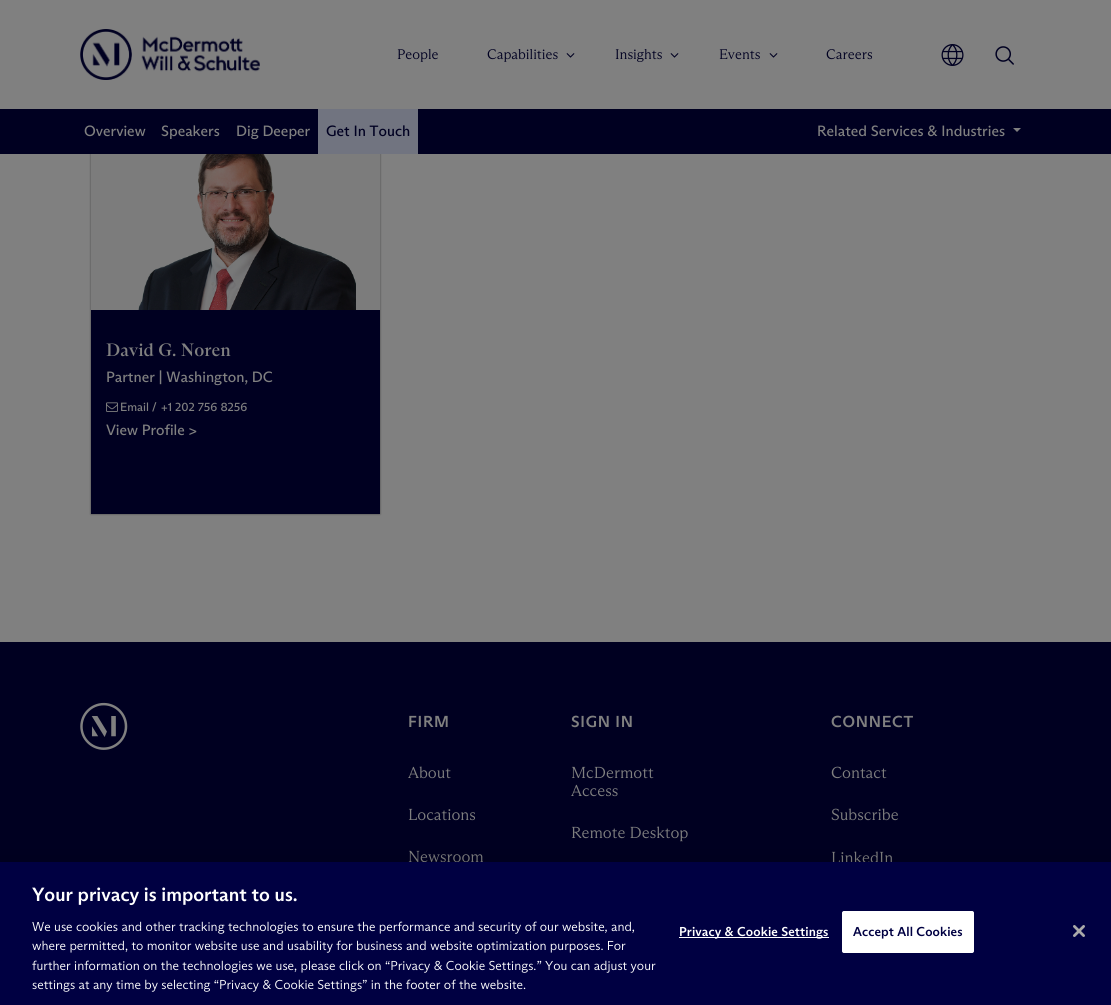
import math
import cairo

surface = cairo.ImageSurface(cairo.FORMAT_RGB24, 1111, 1005)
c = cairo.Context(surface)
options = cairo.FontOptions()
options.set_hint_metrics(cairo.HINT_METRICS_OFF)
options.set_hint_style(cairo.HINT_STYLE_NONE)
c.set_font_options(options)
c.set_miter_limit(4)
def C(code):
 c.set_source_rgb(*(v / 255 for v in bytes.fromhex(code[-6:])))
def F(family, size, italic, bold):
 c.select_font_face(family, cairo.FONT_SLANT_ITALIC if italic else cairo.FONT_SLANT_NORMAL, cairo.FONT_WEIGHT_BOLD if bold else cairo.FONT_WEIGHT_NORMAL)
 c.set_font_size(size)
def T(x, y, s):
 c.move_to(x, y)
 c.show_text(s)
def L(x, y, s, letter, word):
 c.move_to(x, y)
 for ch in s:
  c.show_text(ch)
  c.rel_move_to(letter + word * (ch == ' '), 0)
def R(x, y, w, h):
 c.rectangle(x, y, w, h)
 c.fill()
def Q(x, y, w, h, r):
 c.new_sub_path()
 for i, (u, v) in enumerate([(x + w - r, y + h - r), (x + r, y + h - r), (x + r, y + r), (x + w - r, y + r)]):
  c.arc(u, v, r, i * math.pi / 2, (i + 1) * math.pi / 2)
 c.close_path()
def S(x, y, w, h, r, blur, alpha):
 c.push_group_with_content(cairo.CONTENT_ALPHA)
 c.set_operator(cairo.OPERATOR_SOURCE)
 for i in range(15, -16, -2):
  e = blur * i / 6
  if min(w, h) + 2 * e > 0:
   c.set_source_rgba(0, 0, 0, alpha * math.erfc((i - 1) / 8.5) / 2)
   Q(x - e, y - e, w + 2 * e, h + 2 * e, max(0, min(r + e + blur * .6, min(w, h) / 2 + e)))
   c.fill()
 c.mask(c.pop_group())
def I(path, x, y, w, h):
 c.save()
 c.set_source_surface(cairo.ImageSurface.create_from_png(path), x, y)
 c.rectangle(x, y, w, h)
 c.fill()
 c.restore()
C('808080')
c.paint()
I('1.png',80,29,180,51)
F('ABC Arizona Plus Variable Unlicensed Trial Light',14,0,0)
C('000021')
T(397,59,'People')
T(487,59,'Capabilities')
I('2.png',566,53,9,5)
T(615,59,'Insights')
I('2.png',670,53,9,5)
T(719,59,'Events')
I('2.png',769,53,9,5)
T(826,59,'Careers')
I('3.png',941,44,23,22)
I('4.png',995,46,19,19)
C('444444')
S(91,121,289,393,0,1,1)
C('000021')
R(0,109,1111,45)
F('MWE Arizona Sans',15,0,0)
C('808080')
T(84,136,'Overview')
T(161,136,'Speakers')
T(236,136,'Dig Deeper')
C('717480')
R(318,109,100,45)
C('000021')
T(326,136,'Get In Touch')
C('808080')
T(817,136,'Related Services & Industries')
c.new_path()
c.move_to(1013,128)
c.line_to(1021,128)
c.line_to(1017,132)
c.close_path()
c.fill()
C('000021')
R(91,310,289,204)
I('5.png',91,154,289,156)
F('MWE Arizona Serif',18,0,0)
C('808080')
T(106,356,'David G. Noren')
F('MWE Arizona Sans',15,0,0)
T(106,382,'Partner | Washington, DC')
I('6.png',106,402,12,10)
F('MWE Arizona Sans',12,0,0)
T(120,411,'Email /')
T(161,411,'+1 202 756 8256')
F('MWE Arizona Sans',15,0,0)
T(106,435,'View Profile >')
C('000021')
R(0,642,1111,220)
I('7.png',80,702,48,48)
F('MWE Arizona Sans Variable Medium',16,0,0)
C('808080')
L(408,727,'FIRM',.75,0)
F('ABC Arizona Plus Variable Unlicensed Trial Light',16,0,0)
T(408,778,'About')
T(408,820,'Locations')
T(408,862,'Newsroom')
F('MWE Arizona Sans Variable Medium',16,0,0)
L(571,727,'SIGN IN',.75,0)
F('ABC Arizona Plus Variable Unlicensed Trial Light',16,0,0)
T(571,778,'McDermott')
T(571,796,'Access')
T(571,838,'Remote Desktop')
F('MWE Arizona Sans Variable Medium',16,0,0)
L(831,727,'CONNECT',.75,0)
F('ABC Arizona Plus Variable Unlicensed Trial Light',16,0,0)
T(831,778,'Contact')
T(831,820,'Subscribe')
T(831,863,'LinkedIn')
C('000000')
S(0,862,1111,143,0,9,.2)
C('000042')
R(0,862,1111,143)
F('MWE Arizona Sans Medium',19.25,0,0)
C('ffffff')
T(32,901,'Your privacy is important to us.')
F('MWE Arizona Sans Light',13,0,0)
T(32,931,'We use cookies and other tracking technologies to ensure the performance and security of our website, and,')
T(32,950,'where permitted, to monitor website use and usability for business and website optimization purposes. For')
T(32,970,'further information on the technologies we use, please click on “Privacy & Cookie Settings.” You can adjust your')
T(32,989,'settings at any time by selecting “Privacy & Cookie Settings” in the footer of the website.')
R(679,937,150,1)
F('MWE Arizona Sans Medium',13,0,0)
L(679,936,'Privacy & Cookie Settings',.1,0)
Q(842.5,911.5,131,41,1.5)
c.fill_preserve()
c.set_line_width(1)
c.stroke()
C('000042')
L(853,936,'Accept All Cookies',.1,0)
I('8.png',1073,925,12,12)
surface.write_to_png('o.png')
